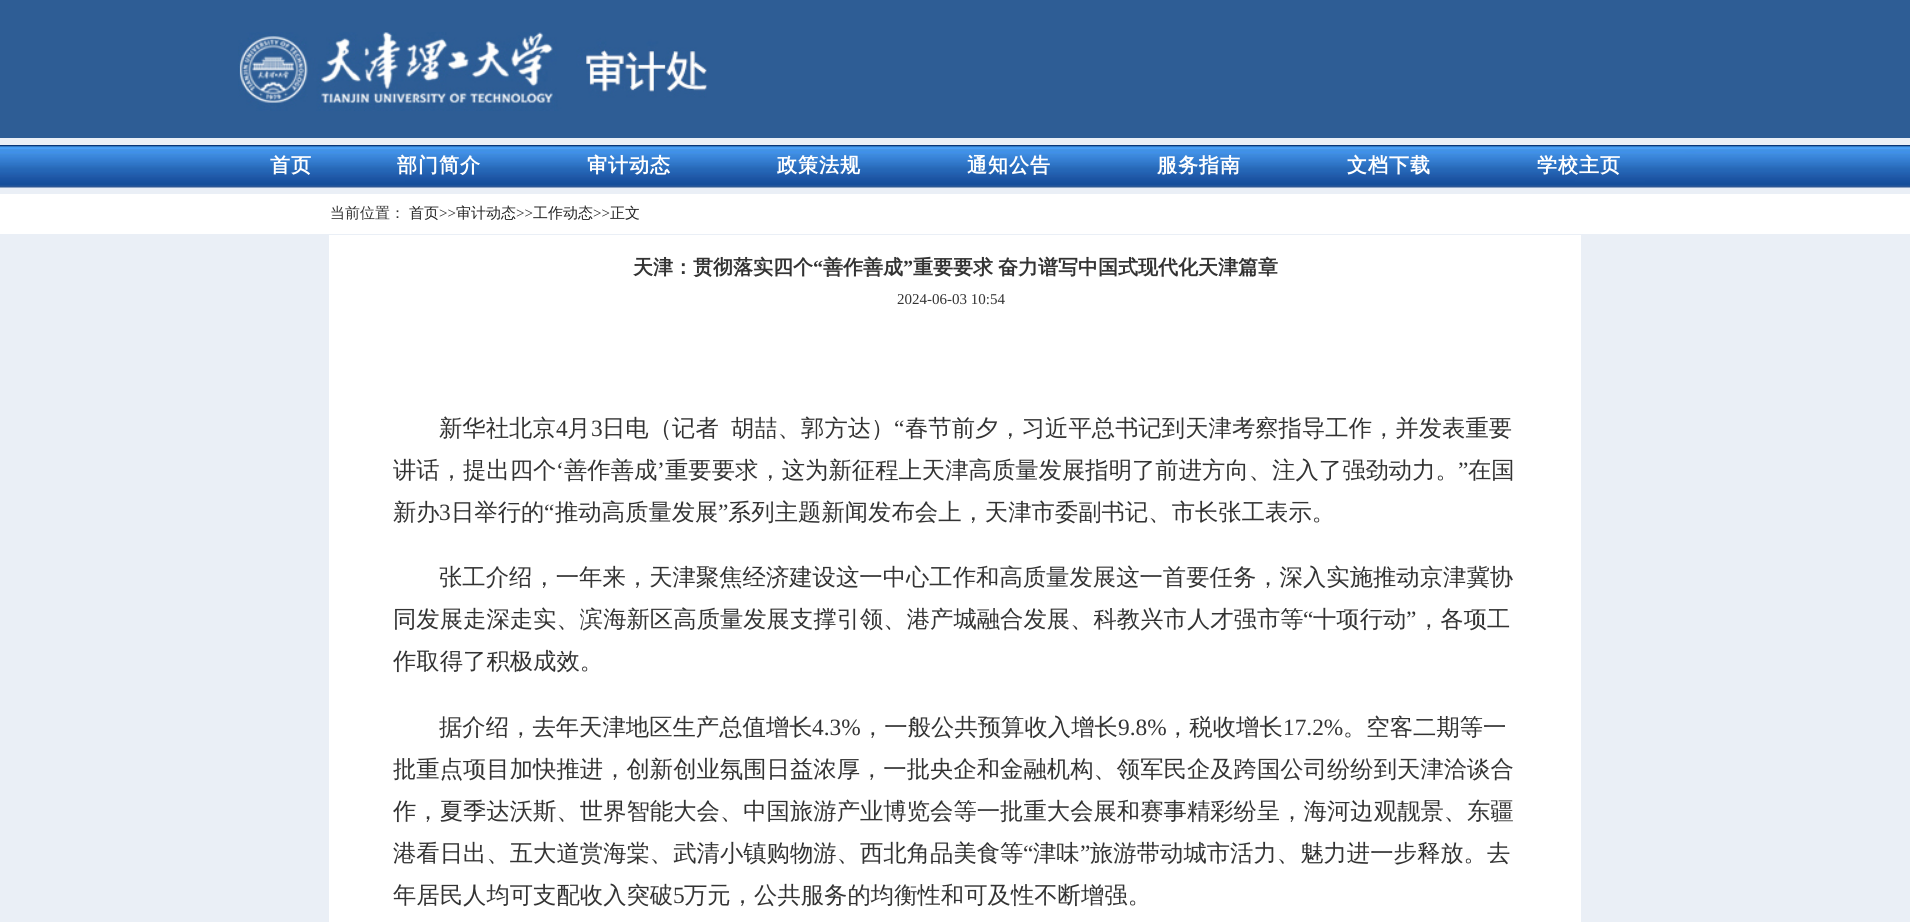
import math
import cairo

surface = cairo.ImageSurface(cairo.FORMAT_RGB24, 1910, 922)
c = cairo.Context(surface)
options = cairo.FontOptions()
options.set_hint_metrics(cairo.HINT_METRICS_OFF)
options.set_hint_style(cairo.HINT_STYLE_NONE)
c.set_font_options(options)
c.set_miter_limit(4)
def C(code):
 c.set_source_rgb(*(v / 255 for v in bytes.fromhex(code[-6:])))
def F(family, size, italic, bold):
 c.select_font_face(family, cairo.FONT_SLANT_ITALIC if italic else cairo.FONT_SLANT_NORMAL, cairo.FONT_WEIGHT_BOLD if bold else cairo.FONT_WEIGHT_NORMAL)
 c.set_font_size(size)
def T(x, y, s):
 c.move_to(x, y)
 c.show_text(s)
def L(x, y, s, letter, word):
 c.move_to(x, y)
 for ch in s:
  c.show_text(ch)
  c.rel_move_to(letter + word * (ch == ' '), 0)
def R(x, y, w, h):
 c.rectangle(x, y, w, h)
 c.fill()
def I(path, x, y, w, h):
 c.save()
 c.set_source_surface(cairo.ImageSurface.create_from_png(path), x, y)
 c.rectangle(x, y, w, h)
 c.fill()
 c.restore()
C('eaeff6')
c.paint()
C('2e5d95')
R(0,0,1910,138)
I('1.png',238,32,470,79)
I('2.png',0,145,1910,43)
F('WenQuanYi Zen Hei',20,0,1)
C('ffffff')
L(270,172,'首页',1,0)
L(397,172,'部门简介',1,0)
L(587,172,'审计动态',1,0)
L(777,172,'政策法规',1,0)
L(967,172,'通知公告',1,0)
L(1157,172,'服务指南',1,0)
L(1347,172,'文档下载',1,0)
L(1537,172,'学校主页',1,0)
R(0,194,1910,40)
F('WenQuanYi Zen Hei Medium',15,0,0)
C('333333')
T(330,218,'当前位置：')
C('222222')
T(409,218,'首页')
F('Liberation Serif',15,0,0)
T(439,218,'>>')
F('WenQuanYi Zen Hei Medium',15,0,0)
T(456,218,'审计动态')
F('Liberation Serif',15,0,0)
T(516,218,'>>')
F('WenQuanYi Zen Hei Medium',15,0,0)
T(533,218,'工作动态')
F('Liberation Serif',15,0,0)
T(593,218,'>>')
F('WenQuanYi Zen Hei Medium',15,0,0)
T(610,218,'正文')
C('ffffff')
R(329,235,1252,687)
F('WenQuanYi Zen Hei',20,0,1)
C('333333')
T(633,274,'天津：贯彻落实四个')
F('Liberation Serif',20,0,1)
T(813,274,'“')
F('WenQuanYi Zen Hei',20,0,1)
T(823,274,'善作善成')
F('Liberation Serif',20,0,1)
T(903,274,'”')
F('WenQuanYi Zen Hei',20,0,1)
L(913,274,'重要要求 奋力谱写中国式现代化天津篇章',0,-1)
F('Liberation Serif',15,0,0)
T(897,304,'2024-06-03 10:54')
F('WenQuanYi Zen Hei Medium',23.35,0,0)
T(439,436,'新华社北京')
F('Liberation Serif',23.35,0,0)
T(556,436,'4')
F('WenQuanYi Zen Hei Medium',23.35,0,0)
T(567,436,'月')
F('Liberation Serif',23.35,0,0)
T(591,436,'3')
F('WenQuanYi Zen Hei Medium',23.35,0,0)
T(602,436,'日电（记者')
T(731,436,'胡喆、郭方达）')
F('Liberation Serif',23.35,0,0)
T(894,436,'“')
F('WenQuanYi Zen Hei Medium',23.35,0,0)
T(905,436,'春节前夕，习近平总书记到天津考察指导工作，并发表重要')
T(393,478,'讲话，提出四个')
F('Liberation Serif',23.35,0,0)
T(556,478,'‘')
F('WenQuanYi Zen Hei Medium',23.35,0,0)
T(564,478,'善作善成')
F('Liberation Serif',23.35,0,0)
T(657,478,'’')
F('WenQuanYi Zen Hei Medium',23.35,0,0)
T(665,478,'重要要求，这为新征程上天津高质量发展指明了前进方向、注入了强劲动力。')
F('Liberation Serif',23.35,0,0)
T(1458,478,'”')
F('WenQuanYi Zen Hei Medium',23.35,0,0)
T(1468,478,'在国')
T(393,520,'新办')
F('Liberation Serif',23.35,0,0)
T(439,520,'3')
F('WenQuanYi Zen Hei Medium',23.35,0,0)
T(451,520,'日举行的')
F('Liberation Serif',23.35,0,0)
T(544,520,'“')
F('WenQuanYi Zen Hei Medium',23.35,0,0)
T(555,520,'推动高质量发展')
F('Liberation Serif',23.35,0,0)
T(718,520,'”')
F('WenQuanYi Zen Hei Medium',23.35,0,0)
T(728,520,'系列主题新闻发布会上，天津市委副书记、市长张工表示。')
T(439,585,'张工介绍，一年来，天津聚焦经济建设这一中心工作和高质量发展这一首要任务，深入实施推动京津冀协')
T(393,627,'同发展走深走实、滨海新区高质量发展支撑引领、港产城融合发展、科教兴市人才强市等')
F('Liberation Serif',23.35,0,0)
T(1303,627,'“')
F('WenQuanYi Zen Hei Medium',23.35,0,0)
T(1313,627,'十项行动')
F('Liberation Serif',23.35,0,0)
T(1406,627,'”')
F('WenQuanYi Zen Hei Medium',23.35,0,0)
T(1417,627,'，各项工')
T(393,669,'作取得了积极成效。')
T(439,735,'据介绍，去年天津地区生产总值增长')
F('Liberation Serif',23.35,0,0)
T(812,735,'4.3%')
F('WenQuanYi Zen Hei Medium',23.35,0,0)
T(861,735,'，一般公共预算收入增长')
F('Liberation Serif',23.35,0,0)
T(1118,735,'9.8%')
F('WenQuanYi Zen Hei Medium',23.35,0,0)
T(1166,735,'，税收增长')
F('Liberation Serif',23.35,0,0)
T(1283,735,'17.2%')
F('WenQuanYi Zen Hei Medium',23.35,0,0)
T(1343,735,'。空客二期等一')
T(393,777,'批重点项目加快推进，创新创业氛围日益浓厚，一批央企和金融机构、领军民企及跨国公司纷纷到天津洽谈合')
T(393,819,'作，夏季达沃斯、世界智能大会、中国旅游产业博览会等一批重大会展和赛事精彩纷呈，海河边观靓景、东疆')
T(393,861,'港看日出、五大道赏海棠、武清小镇购物游、西北角品美食等')
F('Liberation Serif',23.35,0,0)
T(1023,861,'“')
F('WenQuanYi Zen Hei Medium',23.35,0,0)
T(1033,861,'津味')
F('Liberation Serif',23.35,0,0)
T(1080,861,'”')
F('WenQuanYi Zen Hei Medium',23.35,0,0)
T(1090,861,'旅游带动城市活力、魅力进一步释放。去')
T(393,903,'年居民人均可支配收入突破')
F('Liberation Serif',23.35,0,0)
T(673,903,'5')
F('WenQuanYi Zen Hei Medium',23.35,0,0)
T(684,903,'万元，公共服务的均衡性和可及性不断增强。')
surface.write_to_png('o.png')
